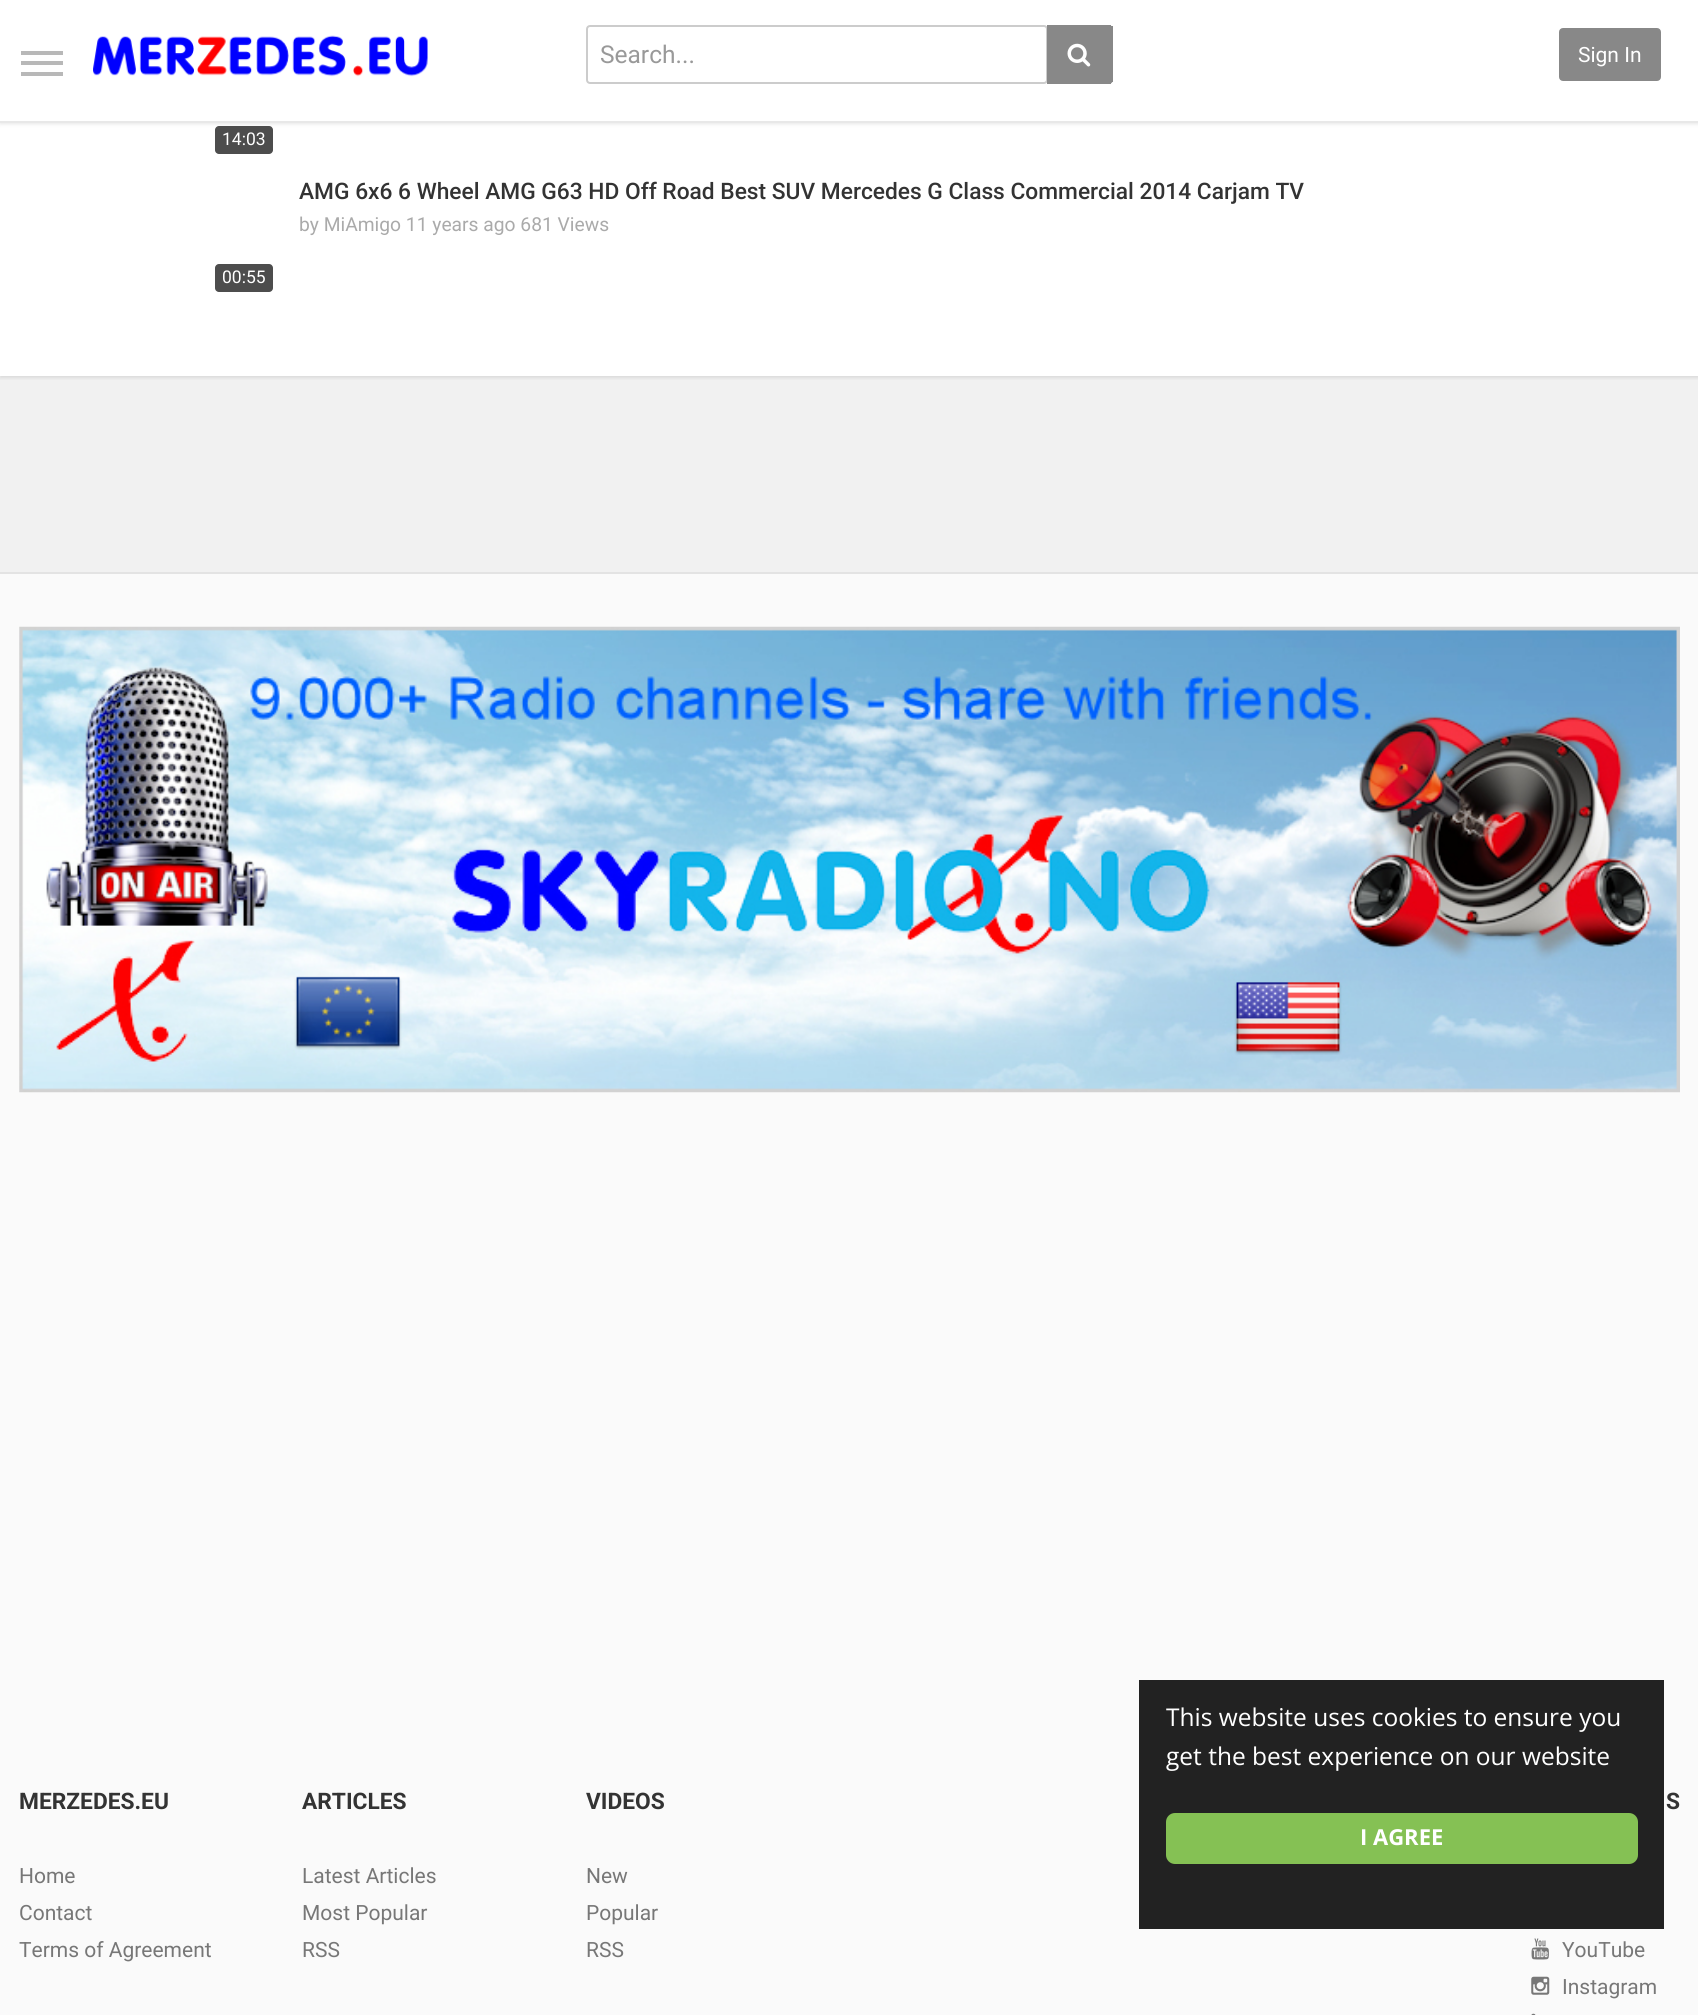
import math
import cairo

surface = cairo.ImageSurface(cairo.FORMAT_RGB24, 1698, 2015)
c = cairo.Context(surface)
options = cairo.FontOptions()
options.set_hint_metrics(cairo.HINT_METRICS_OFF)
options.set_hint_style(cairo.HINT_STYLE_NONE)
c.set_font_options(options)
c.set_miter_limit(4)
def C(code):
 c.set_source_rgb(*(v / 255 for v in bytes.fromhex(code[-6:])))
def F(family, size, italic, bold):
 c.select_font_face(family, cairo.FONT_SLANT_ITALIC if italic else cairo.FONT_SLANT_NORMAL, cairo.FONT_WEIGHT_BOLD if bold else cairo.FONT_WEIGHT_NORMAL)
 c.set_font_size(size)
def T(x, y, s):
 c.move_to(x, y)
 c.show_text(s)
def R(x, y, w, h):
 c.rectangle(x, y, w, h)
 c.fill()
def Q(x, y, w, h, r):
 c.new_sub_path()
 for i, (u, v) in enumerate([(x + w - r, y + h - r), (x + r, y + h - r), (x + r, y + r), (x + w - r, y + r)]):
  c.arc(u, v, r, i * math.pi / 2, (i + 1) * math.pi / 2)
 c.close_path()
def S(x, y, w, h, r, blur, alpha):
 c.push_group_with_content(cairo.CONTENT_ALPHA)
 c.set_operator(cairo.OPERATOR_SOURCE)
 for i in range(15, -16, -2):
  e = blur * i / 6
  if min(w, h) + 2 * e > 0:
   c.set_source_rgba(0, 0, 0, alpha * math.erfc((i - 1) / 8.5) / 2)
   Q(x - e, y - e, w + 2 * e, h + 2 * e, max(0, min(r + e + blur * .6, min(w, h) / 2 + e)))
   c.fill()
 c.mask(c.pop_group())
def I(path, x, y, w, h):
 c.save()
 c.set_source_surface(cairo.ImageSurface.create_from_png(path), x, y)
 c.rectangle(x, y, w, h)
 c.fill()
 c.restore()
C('f1f1f1')
c.paint()
C('ffffff')
R(0,123,1698,253)
c.save()
c.rectangle(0,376,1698,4)
c.clip()
C('000000')
S(0,-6,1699,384,0,2,.1)
c.restore()
C('4d4d4d')
Q(215,126,58,28,4)
c.fill()
C('000000')
S(0,2,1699,122,0,2,.1)
C('ffffff')
R(0,0,1698,121)
C('e8e8e8')
R(0,121,1698,2)
C('b8b8b8')
R(21,61,42,4)
R(21,51,42,4)
R(21,72,42,4)
I('1.png',93,35,335,42)
Q(587,26,460,57,3)
C('cccccc')
c.stroke()
F('Roboto',24.5,0,0)
C('999999')
T(600,63,'Search...')
C('888888')
c.new_path()
c.move_to(1047,25)
c.line_to(1109,25)
c.curve_to(1111,25,1113,27,1113,29)
c.line_to(1113,80)
c.curve_to(1113,82,1111,84,1109,84)
c.line_to(1047,84)
c.close_path()
c.fill()
R(1109,25,2,1)
R(1111,26,2,56)
R(1109,83,2,1)
I('2.png',1067,43,24,24)
Q(1560,29,100,51,3)
c.fill_preserve()
c.stroke()
F('Roboto',21,0,0)
C('ffffff')
T(1578,62,'Sign In')
F('Roboto',17.5,0,0)
T(222,145,'14:03')
F('Roboto Medium',22.75,0,0)
C('333333')
T(299,199,'AMG 6x6 6 Wheel AMG G63 HD Off Road Best SUV Mercedes G Class Commercial 2014 Carjam TV')
F('Roboto',19.25,0,0)
C('aaaaaa')
T(299,231,'by MiAmigo 11 years ago 681 Views')
C('4d4d4d')
Q(215,264,58,28,4)
c.fill()
F('Roboto',17.5,0,0)
C('ffffff')
T(222,283,'00:55')
C('fafafa')
R(0,574,1698,1441)
C('222222')
R(1139,1680,525,249)
F('Open Sans',24.5,0,0)
C('ffffff')
T(1166,1726,'This website uses cookies to ensure you')
T(1166,1765,'get the best experience on our website')
C('85c154')
Q(1166,1813,472,51,9)
c.fill()
F('Open Sans',22,0,1)
C('ffffff')
T(1360,1845,'I AGREE')
C('e3e3e3')
R(0,572,1698,2)
I('3.png',19,626,1661,467)
F('Roboto',22.75,0,1)
C('333333')
T(19,1809,'MERZEDES.EU')
F('Roboto',21,0,0)
C('777777')
T(19,1883,'Home')
T(19,1920,'Contact')
T(19,1957,'Terms of Agreement')
F('Roboto',22.75,0,1)
C('333333')
T(302,1809,'ARTICLES')
F('Roboto',21,0,0)
C('777777')
T(302,1883,'Latest Articles')
T(302,1920,'Most Popular')
T(302,1957,'RSS')
F('Roboto',22.75,0,1)
C('333333')
T(586,1809,'VIDEOS')
F('Roboto',21,0,0)
C('777777')
T(586,1883,'New')
T(586,1920,'Popular')
T(586,1957,'RSS')
F('Roboto',22.75,0,1)
C('333333')
T(1666,1809,'S')
I('4.png',1531,1938,18,22)
F('Roboto',21,0,0)
C('777777')
T(1562,1957,'YouTube')
I('5.png',1531,1976,19,19)
T(1562,1994,'Instagram')
I('6.png',1531,2013,5,2)
surface.write_to_png('o.png')
